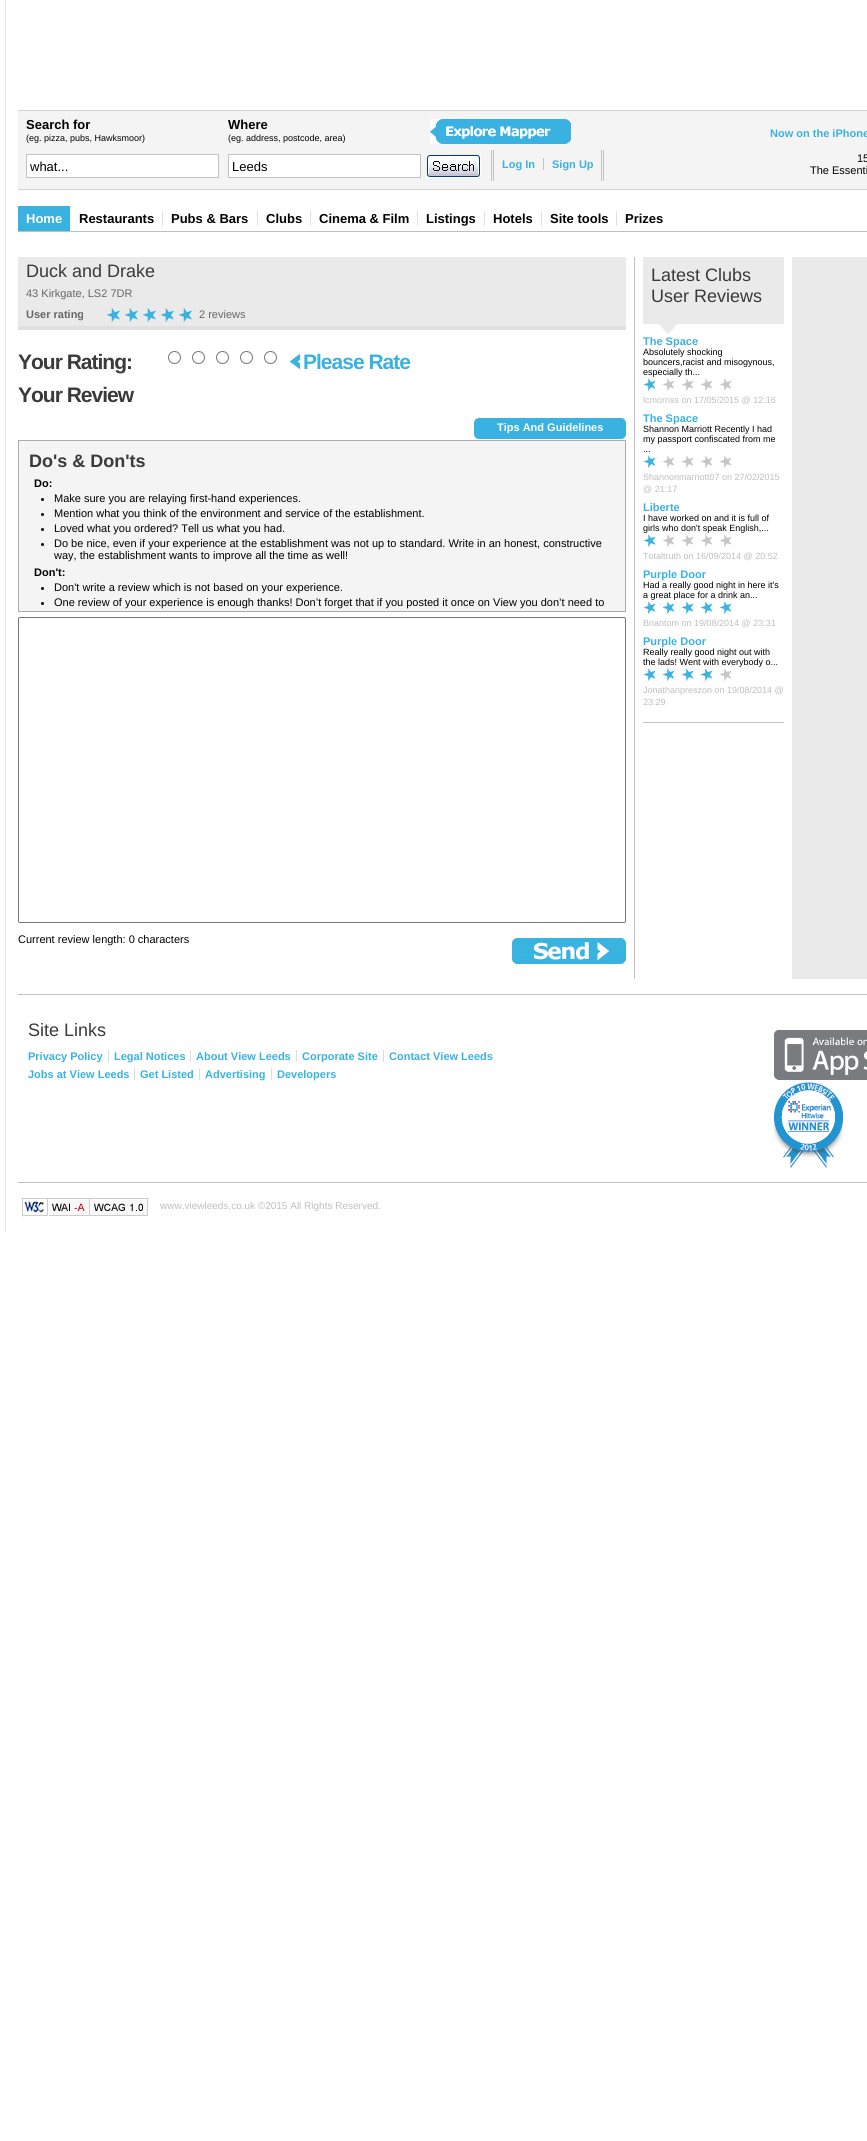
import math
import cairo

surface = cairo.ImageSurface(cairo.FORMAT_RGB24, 867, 2141)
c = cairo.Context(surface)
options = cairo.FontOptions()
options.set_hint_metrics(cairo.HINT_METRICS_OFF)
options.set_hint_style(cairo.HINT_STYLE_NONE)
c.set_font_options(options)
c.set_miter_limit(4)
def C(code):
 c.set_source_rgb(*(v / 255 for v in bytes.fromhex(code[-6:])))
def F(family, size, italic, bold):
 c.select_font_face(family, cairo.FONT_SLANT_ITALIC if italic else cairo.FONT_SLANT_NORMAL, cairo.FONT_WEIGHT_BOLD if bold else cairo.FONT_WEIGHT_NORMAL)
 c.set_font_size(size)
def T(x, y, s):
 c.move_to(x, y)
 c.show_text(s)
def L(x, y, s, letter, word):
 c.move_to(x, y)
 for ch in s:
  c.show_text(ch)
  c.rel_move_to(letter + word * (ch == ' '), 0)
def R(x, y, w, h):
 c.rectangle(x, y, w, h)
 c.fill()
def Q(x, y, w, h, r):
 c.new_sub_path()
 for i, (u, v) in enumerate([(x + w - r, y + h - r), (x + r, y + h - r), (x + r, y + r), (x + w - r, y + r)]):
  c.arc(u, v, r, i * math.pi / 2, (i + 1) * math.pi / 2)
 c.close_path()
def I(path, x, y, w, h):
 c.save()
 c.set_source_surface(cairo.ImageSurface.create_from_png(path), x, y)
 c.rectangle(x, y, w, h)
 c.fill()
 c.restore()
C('ffffff')
c.paint()
C('e6e6e6')
R(5,0,1,1232)
C('f4f4f4')
R(18,111,849,78)
C('d3d3d3')
R(18,110,849,1)
R(18,189,849,1)
F('Liberation Sans',13,0,1)
C('000000')
T(26,129,'Search for')
F('Liberation Sans',9,0,0)
T(26,141,'(eg. pizza, pubs, Hawksmoor)')
F('Liberation Sans',13,0,1)
T(228,129,'Where')
F('Liberation Sans',9,0,0)
T(228,141,'(eg. address, postcode, area)')
I('1.png',430,119,141,25)
F('Liberation Sans',11,0,1)
C('39b2e1')
T(770,137,'Now on the iPhone')
C('ffffff')
c.rectangle(26.5,154.5,192,23)
c.fill_preserve()
C('c2c2c2')
c.set_line_width(1)
c.stroke()
F('Liberation Sans',13,0,0)
C('000000')
T(30,171,'what...')
C('ffffff')
c.rectangle(228.5,154.5,192,23)
c.fill_preserve()
C('c2c2c2')
c.stroke()
C('000000')
T(232,171,'Leeds')
I('2.png',426,154,55,24)
C('c2c2c2')
R(601,150,1,31)
R(603,150,1,31)
R(491,150,1,31)
R(493,150,1,31)
F('Liberation Sans',11,0,1)
C('39b2e1')
T(502,168,'Log In')
C('c2c2c2')
R(543,158,1,12)
C('39b2e1')
T(552,168,'Sign Up')
F('Liberation Sans',11,0,0)
C('000000')
T(857,162,'15')
T(810,174,'The Essenti')
C('bfbfbf')
R(18,231,849,1)
C('39b2e1')
R(18,206,52,25)
F('Liberation Sans',13,0,1)
C('ffffff')
T(26,223,'Home')
C('e0e0e0')
R(162,211,1,15)
C('000000')
T(79,223,'Restaurants')
C('e0e0e0')
R(257,211,1,15)
C('000000')
T(171,223,'Pubs & Bars')
C('e0e0e0')
R(310,211,1,15)
C('000000')
T(266,223,'Clubs')
C('e0e0e0')
R(417,211,1,15)
C('000000')
T(319,223,'Cinema & Film')
C('e0e0e0')
R(484,211,1,15)
C('000000')
T(426,223,'Listings')
C('e0e0e0')
R(541,211,1,15)
C('000000')
T(493,223,'Hotels')
C('e0e0e0')
R(616,211,1,15)
C('000000')
T(550,223,'Site tools')
T(625,223,'Prizes')
C('eaeaea')
R(792,257,75,722)
C('c2c2c2')
R(634,257,1,722)
C('eaeaea')
R(18,257,608,69)
C('e0e0e0')
R(18,326,608,4)
F('Liberation Sans',18,0,0)
C('3a3a3a')
T(26,277,'Duck and Drake')
F('Liberation Sans',11,0,0)
C('666666')
T(26,297,'43 Kirkgate, LS2 7DR')
F('Liberation Sans',11,0,1)
T(26,318,'User rating')
I('3.png',106,308,14,14)
I('3.png',124,308,14,14)
I('3.png',142,308,14,14)
I('3.png',160,308,14,14)
I('3.png',178,308,14,14)
F('Liberation Sans',11,0,0)
T(199,318,'2 reviews')
F('Liberation Sans',21,0,1)
C('3a3a3a')
L(18,369,'Your Rating:',-1,0)
c.new_path()
c.arc(174.5,357.5,6,0,2 * math.pi)
C('767676')
c.stroke()
c.arc(198.5,357.5,6,0,2 * math.pi)
c.stroke()
c.arc(222.5,357.5,6,0,2 * math.pi)
c.stroke()
c.arc(246.5,357.5,6,0,2 * math.pi)
c.stroke()
c.arc(270.5,357.5,6,0,2 * math.pi)
c.stroke()
I('4.png',290,354,10,15)
C('39b2e1')
L(303,369,'Please Rate',-1,0)
C('3a3a3a')
L(18,402,'Your Review',-1,0)
C('39b2e1')
Q(474,418,152,21,5)
c.fill()
F('Liberation Sans',11,0,1)
C('ffffff')
T(497,431,'Tips And Guidelines')
C('f4f4f4')
c.rectangle(18.5,440.5,607,171)
c.fill_preserve()
C('a9adb0')
c.stroke()
F('Liberation Sans',18,0,1)
C('3a3a3a')
T(29,467,'Do\'s & Don\'ts')
F('Liberation Sans',11,0,1)
C('000000')
T(34,487,'Do:')
c.new_path()
c.arc(42.5,499.5,1.5,0,2 * math.pi)
c.fill()
F('Liberation Sans',11,0,0)
T(54,502,'Make sure you are relaying first-hand experiences.')
c.new_path()
c.arc(42.5,514.5,1.5,0,2 * math.pi)
c.fill()
T(54,517,'Mention what you think of the environment and service of the establishment.')
c.new_path()
c.arc(42.5,529.5,1.5,0,2 * math.pi)
c.fill()
T(54,532,'Loved what you ordered? Tell us what you had.')
c.new_path()
c.arc(42.5,544.5,1.5,0,2 * math.pi)
c.fill()
T(54,547,'Do be nice, even if your experience at the establishment was not up to standard. Write in an honest, constructive')
T(54,559,'way, the establishment wants to improve all the time as well!')
F('Liberation Sans',11,0,1)
T(34,576,'Don\'t:')
c.new_path()
c.arc(42.5,588.5,1.5,0,2 * math.pi)
c.fill()
F('Liberation Sans',11,0,0)
T(54,591,'Don\'t write a review which is not based on your experience.')
c.new_path()
c.arc(42.5,603.5,1.5,0,2 * math.pi)
c.fill()
T(54,606,'One review of your experience is enough thanks! Don’t forget that if you posted it once on View you don’t need to')
Q(18.5,617.5,607,305,1.5)
C('767676')
c.stroke()
C('000000')
T(18,943,'Current review length: 0 characters')
I('5.png',512,938,114,26)
C('eaeaea')
R(643,257,141,67)
I('6.png',643,324,141,11)
F('Liberation Sans',18,0,0)
C('3a3a3a')
T(651,281,'Latest Clubs')
T(651,302,'User Reviews')
C('c2c2c2')
R(643,722,141,1)
F('Liberation Sans',11,0,1)
C('39b2e1')
T(643,345,'The Space')
F('Liberation Sans',9,0,0)
C('000000')
T(643,355,'Absolutely shocking')
T(643,365,'bouncers,racist and misogynous,')
T(643,375,'especially th...')
I('7.png',643,378,89,13)
C('bebebe')
T(643,403,'lcmorriss on 17/05/2015 @ 12:16')
F('Liberation Sans',11,0,1)
C('39b2e1')
T(643,422,'The Space')
F('Liberation Sans',9,0,0)
C('000000')
T(643,432,'Shannon Marriott Recently I had')
T(643,442,'my passport confiscated from me')
T(643,452,'...')
I('7.png',643,455,89,13)
C('bebebe')
T(643,480,'Shannonmarriott07 on 27/02/2015')
T(643,492,'@ 21:17')
F('Liberation Sans',11,0,1)
C('39b2e1')
T(643,511,'Liberte')
F('Liberation Sans',9,0,0)
C('000000')
T(643,521,'I have worked on and it is full of')
T(643,531,'girls who don\'t speak English,...')
I('7.png',643,534,89,13)
C('bebebe')
T(643,559,'Totaltruth on 16/09/2014 @ 20:52')
F('Liberation Sans',11,0,1)
C('39b2e1')
T(643,578,'Purple Door')
F('Liberation Sans',9,0,0)
C('000000')
T(643,588,'Had a really good night in here it\'s')
T(643,598,'a great place for a drink an...')
I('8.png',643,601,89,13)
C('bebebe')
T(643,626,'Briantom on 19/08/2014 @ 23:31')
F('Liberation Sans',11,0,1)
C('39b2e1')
T(643,645,'Purple Door')
F('Liberation Sans',9,0,0)
C('000000')
T(643,655,'Really really good night out with')
T(643,665,'the lads! Went with everybody o...')
I('9.png',643,668,89,13)
C('bebebe')
T(643,693,'Jonathanpreszon on 19/08/2014 @')
T(643,705,'23:29')
C('c2c2c2')
R(18,994,849,1)
F('Liberation Sans',18,0,0)
C('3a3a3a')
T(28,1036,'Site Links')
C('dddddd')
R(108,1050,1,12)
F('Liberation Sans',11,0,1)
C('39b2e1')
T(28,1060,'Privacy Policy')
C('dddddd')
R(190,1050,1,12)
C('39b2e1')
T(114,1060,'Legal Notices')
C('dddddd')
R(296,1050,1,12)
C('39b2e1')
T(196,1060,'About View Leeds')
C('dddddd')
R(383,1050,1,12)
C('39b2e1')
T(302,1060,'Corporate Site')
T(389,1060,'Contact View Leeds')
C('dddddd')
R(134,1068,1,12)
C('39b2e1')
T(28,1078,'Jobs at View Leeds')
C('dddddd')
R(199,1068,1,12)
C('39b2e1')
T(140,1078,'Get Listed')
C('dddddd')
R(271,1068,1,12)
C('39b2e1')
T(205,1078,'Advertising')
T(277,1078,'Developers')
I('10.png',774,1030,93,50)
I('11.png',774,1082,69,86)
C('c2c2c2')
R(18,1182,849,1)
I('12.png',22,1198,127,19)
F('Liberation Sans',10,0,0)
C('bebebe')
T(160,1209,'www.viewleeds.co.uk ©2015 All Rights Reserved.')
surface.write_to_png('o.png')
